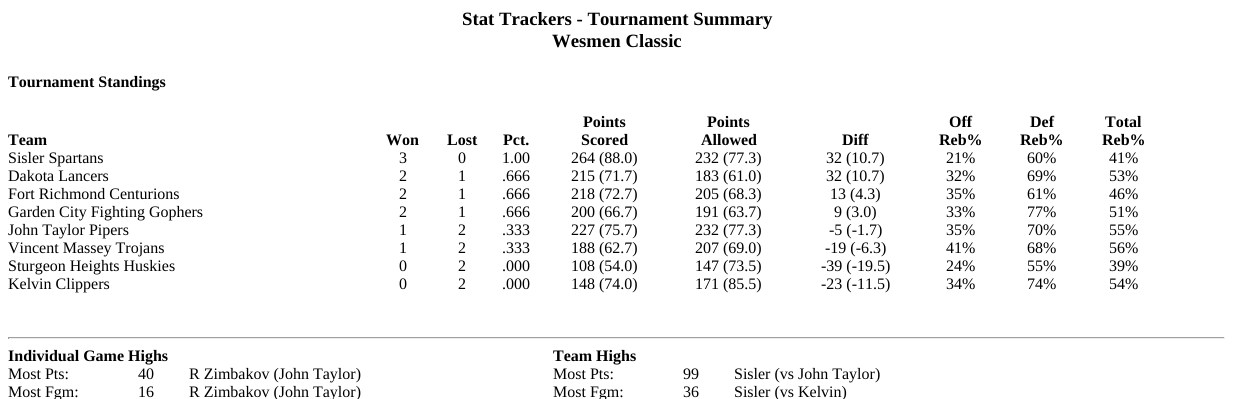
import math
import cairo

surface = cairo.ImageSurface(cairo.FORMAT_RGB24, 1233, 399)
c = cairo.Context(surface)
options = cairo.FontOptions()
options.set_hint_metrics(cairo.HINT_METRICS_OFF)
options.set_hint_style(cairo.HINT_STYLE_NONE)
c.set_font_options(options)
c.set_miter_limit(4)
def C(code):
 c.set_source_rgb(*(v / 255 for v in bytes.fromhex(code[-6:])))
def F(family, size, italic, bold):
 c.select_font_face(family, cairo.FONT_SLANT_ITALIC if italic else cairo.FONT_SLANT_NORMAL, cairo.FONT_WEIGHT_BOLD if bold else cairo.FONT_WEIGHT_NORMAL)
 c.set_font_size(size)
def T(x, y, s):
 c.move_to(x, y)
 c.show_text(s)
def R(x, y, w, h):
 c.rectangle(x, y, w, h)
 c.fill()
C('ffffff')
c.paint()
F('Liberation Serif',18.75,0,1)
C('000000')
T(462,25,'Stat Trackers - Tournament Summary')
T(552,47,'Wesmen Classic')
F('Liberation Serif',16,0,1)
T(8,87,'Tournament Standings')
T(583,127,'Points')
T(707,127,'Points')
T(949,127,'Off')
T(1030,127,'Def')
T(1105,127,'Total')
T(8,145,'Team')
T(386,145,'Won')
T(447,145,'Lost')
T(503,145,'Pct.')
T(581,145,'Scored')
T(701,145,'Allowed')
T(842,145,'Diff')
T(939,145,'Reb%')
T(1020,145,'Reb%')
T(1102,145,'Reb%')
F('Liberation Serif',16,0,0)
T(8,163,'Sisler Spartans')
T(399,163,'3')
T(458,163,'0')
T(502,163,'1.00')
T(571,163,'264 (88.0)')
T(695,163,'232 (77.3)')
T(826,163,'32 (10.7)')
T(946,163,'21%')
T(1027,163,'60%')
T(1109,163,'41%')
T(8,181,'Dakota Lancers')
T(399,181,'2')
T(458,181,'1')
T(502,181,'.666')
T(571,181,'215 (71.7)')
T(695,181,'183 (61.0)')
T(826,181,'32 (10.7)')
T(946,181,'32%')
T(1027,181,'69%')
T(1109,181,'53%')
T(8,199,'Fort Richmond Centurions')
T(399,199,'2')
T(458,199,'1')
T(502,199,'.666')
T(571,199,'218 (72.7)')
T(695,199,'205 (68.3)')
T(830,199,'13 (4.3)')
T(946,199,'35%')
T(1027,199,'61%')
T(1109,199,'46%')
T(8,217,'Garden City Fighting Gophers')
T(399,217,'2')
T(458,217,'1')
T(502,217,'.666')
T(571,217,'200 (66.7)')
T(695,217,'191 (63.7)')
T(834,217,'9 (3.0)')
T(946,217,'33%')
T(1027,217,'77%')
T(1109,217,'51%')
T(8,235,'John Taylor Pipers')
T(399,235,'1')
T(458,235,'2')
T(502,235,'.333')
T(571,235,'227 (75.7)')
T(695,235,'232 (77.3)')
T(829,235,'-5 (-1.7)')
T(946,235,'35%')
T(1027,235,'70%')
T(1109,235,'55%')
T(8,253,'Vincent Massey Trojans')
T(399,253,'1')
T(458,253,'2')
T(502,253,'.333')
T(571,253,'188 (62.7)')
T(695,253,'207 (69.0)')
T(825,253,'-19 (-6.3)')
T(946,253,'41%')
T(1027,253,'68%')
T(1109,253,'56%')
T(8,271,'Sturgeon Heights Huskies')
T(399,271,'0')
T(458,271,'2')
T(502,271,'.000')
T(571,271,'108 (54.0)')
T(695,271,'147 (73.5)')
T(821,271,'-39 (-19.5)')
T(946,271,'24%')
T(1027,271,'55%')
T(1109,271,'39%')
T(8,289,'Kelvin Clippers')
T(399,289,'0')
T(458,289,'2')
T(502,289,'.000')
T(571,289,'148 (74.0)')
T(695,289,'171 (85.5)')
T(821,289,'-23 (-11.5)')
T(946,289,'34%')
T(1027,289,'74%')
T(1109,289,'54%')
C('9f9f9f')
R(8,337,1217,1)
C('eeeeee')
R(1224,337,1,2)
R(8,338,1217,1)
C('9f9f9f')
R(8,337,1,2)
F('Liberation Serif',16,0,1)
C('000000')
T(8,361,'Individual Game Highs')
T(553,361,'Team Highs')
F('Liberation Serif',16,0,0)
T(8,379,'Most Pts:')
T(138,379,'40')
T(189,379,'R Zimbakov (John Taylor)')
T(553,379,'Most Pts:')
T(683,379,'99')
T(734,379,'Sisler (vs John Taylor)')
T(8,397,'Most Fgm:')
T(138,397,'16')
T(189,397,'R Zimbakov (John Taylor)')
T(553,397,'Most Fgm:')
T(683,397,'36')
T(734,397,'Sisler (vs Kelvin)')
surface.write_to_png('o.png')
